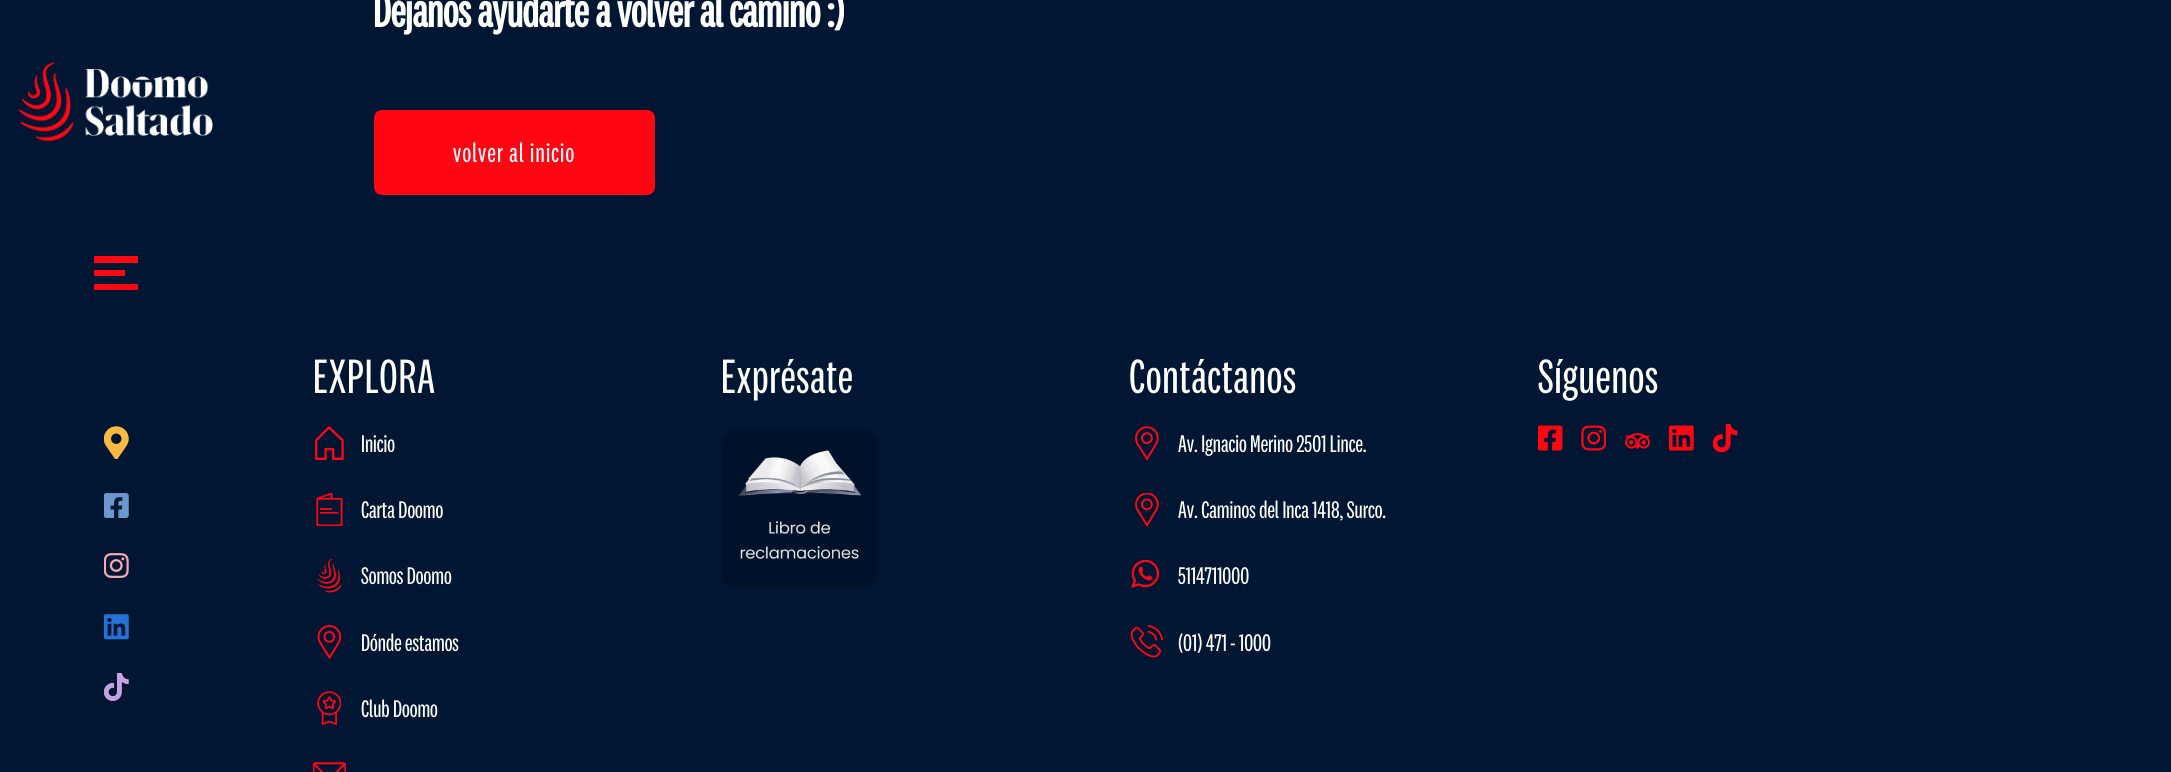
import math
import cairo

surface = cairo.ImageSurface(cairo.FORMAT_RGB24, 2171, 772)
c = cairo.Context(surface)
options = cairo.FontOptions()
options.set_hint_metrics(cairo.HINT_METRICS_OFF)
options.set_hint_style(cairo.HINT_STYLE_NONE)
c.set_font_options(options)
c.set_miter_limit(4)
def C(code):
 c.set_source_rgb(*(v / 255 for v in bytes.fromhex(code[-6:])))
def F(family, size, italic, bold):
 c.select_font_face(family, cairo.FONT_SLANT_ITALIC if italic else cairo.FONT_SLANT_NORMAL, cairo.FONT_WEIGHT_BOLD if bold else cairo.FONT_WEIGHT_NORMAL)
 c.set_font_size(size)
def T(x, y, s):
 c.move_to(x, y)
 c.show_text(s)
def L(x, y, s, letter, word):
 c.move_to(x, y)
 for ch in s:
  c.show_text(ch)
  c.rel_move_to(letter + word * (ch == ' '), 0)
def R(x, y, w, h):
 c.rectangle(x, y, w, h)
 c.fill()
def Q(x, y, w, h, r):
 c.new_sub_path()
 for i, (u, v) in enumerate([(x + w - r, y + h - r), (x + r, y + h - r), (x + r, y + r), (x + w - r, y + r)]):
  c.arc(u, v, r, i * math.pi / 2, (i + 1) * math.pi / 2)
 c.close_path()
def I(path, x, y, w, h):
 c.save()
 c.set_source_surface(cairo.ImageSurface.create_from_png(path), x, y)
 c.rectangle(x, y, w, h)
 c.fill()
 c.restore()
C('001633')
c.paint()
I('1.png',18,62,195,80)
C('ff0613')
R(94,256,44,7)
R(94,270,31,6)
R(94,284,44,6)
I('2.png',104,426,25,33)
I('3.png',104,493,25,25)
I('4.png',104,553,25,25)
I('5.png',104,614,25,26)
I('6.png',104,673,25,28)
F('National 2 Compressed',48.75,0,1)
C('ffffff')
T(373,27,'Déjanos ayudarte a volver al camino :)')
C('ff0613')
Q(374,110,281,85,8)
c.fill()
F('National 2 Compressed',28,0,0)
C('ffffff')
L(453,162,'volver al inicio',1.25,0)
F('National 2 Compressed',50,0,0)
L(313,393,'EXPLORA',.9,0)
I('7.png',315,426,29,34)
F('National 2 Compressed',25,0,0)
T(361,452,'Inicio')
I('8.png',316,493,27,33)
T(361,518,'Carta Doomo')
I('9.png',317,559,25,34)
T(361,584,'Somos Doomo')
I('10.png',317,625,25,34)
T(361,651,'Dónde estamos')
I('11.png',317,691,24,34)
T(361,717,'Club Doomo')
I('12.png',313,762,33,10)
F('National 2 Compressed',50,0,0)
L(721,393,'Exprésate',.9,0)
I('13.png',721,430,157,159)
L(1129,393,'Contáctanos',.9,0)
I('14.png',1135,426,24,34)
F('National 2 Compressed',25,0,0)
T(1178,452,'Av. Ignacio Merino 2501 Lince.')
I('15.png',1135,493,24,33)
T(1178,518,'Av. Caminos del Inca 1418, Surco.')
I('16.png',1131,559,29,29)
T(1178,584,'5114711000')
I('17.png',1130,625,34,33)
T(1178,651,'(01) 471 - 1000')
F('National 2 Compressed',50,0,0)
L(1538,393,'Síguenos',.9,0)
I('18.png',1538,425,25,26)
I('19.png',1581,425,25,26)
I('20.png',1625,433,25,16)
I('21.png',1669,425,25,26)
I('22.png',1713,424,25,29)
surface.write_to_png('o.png')
